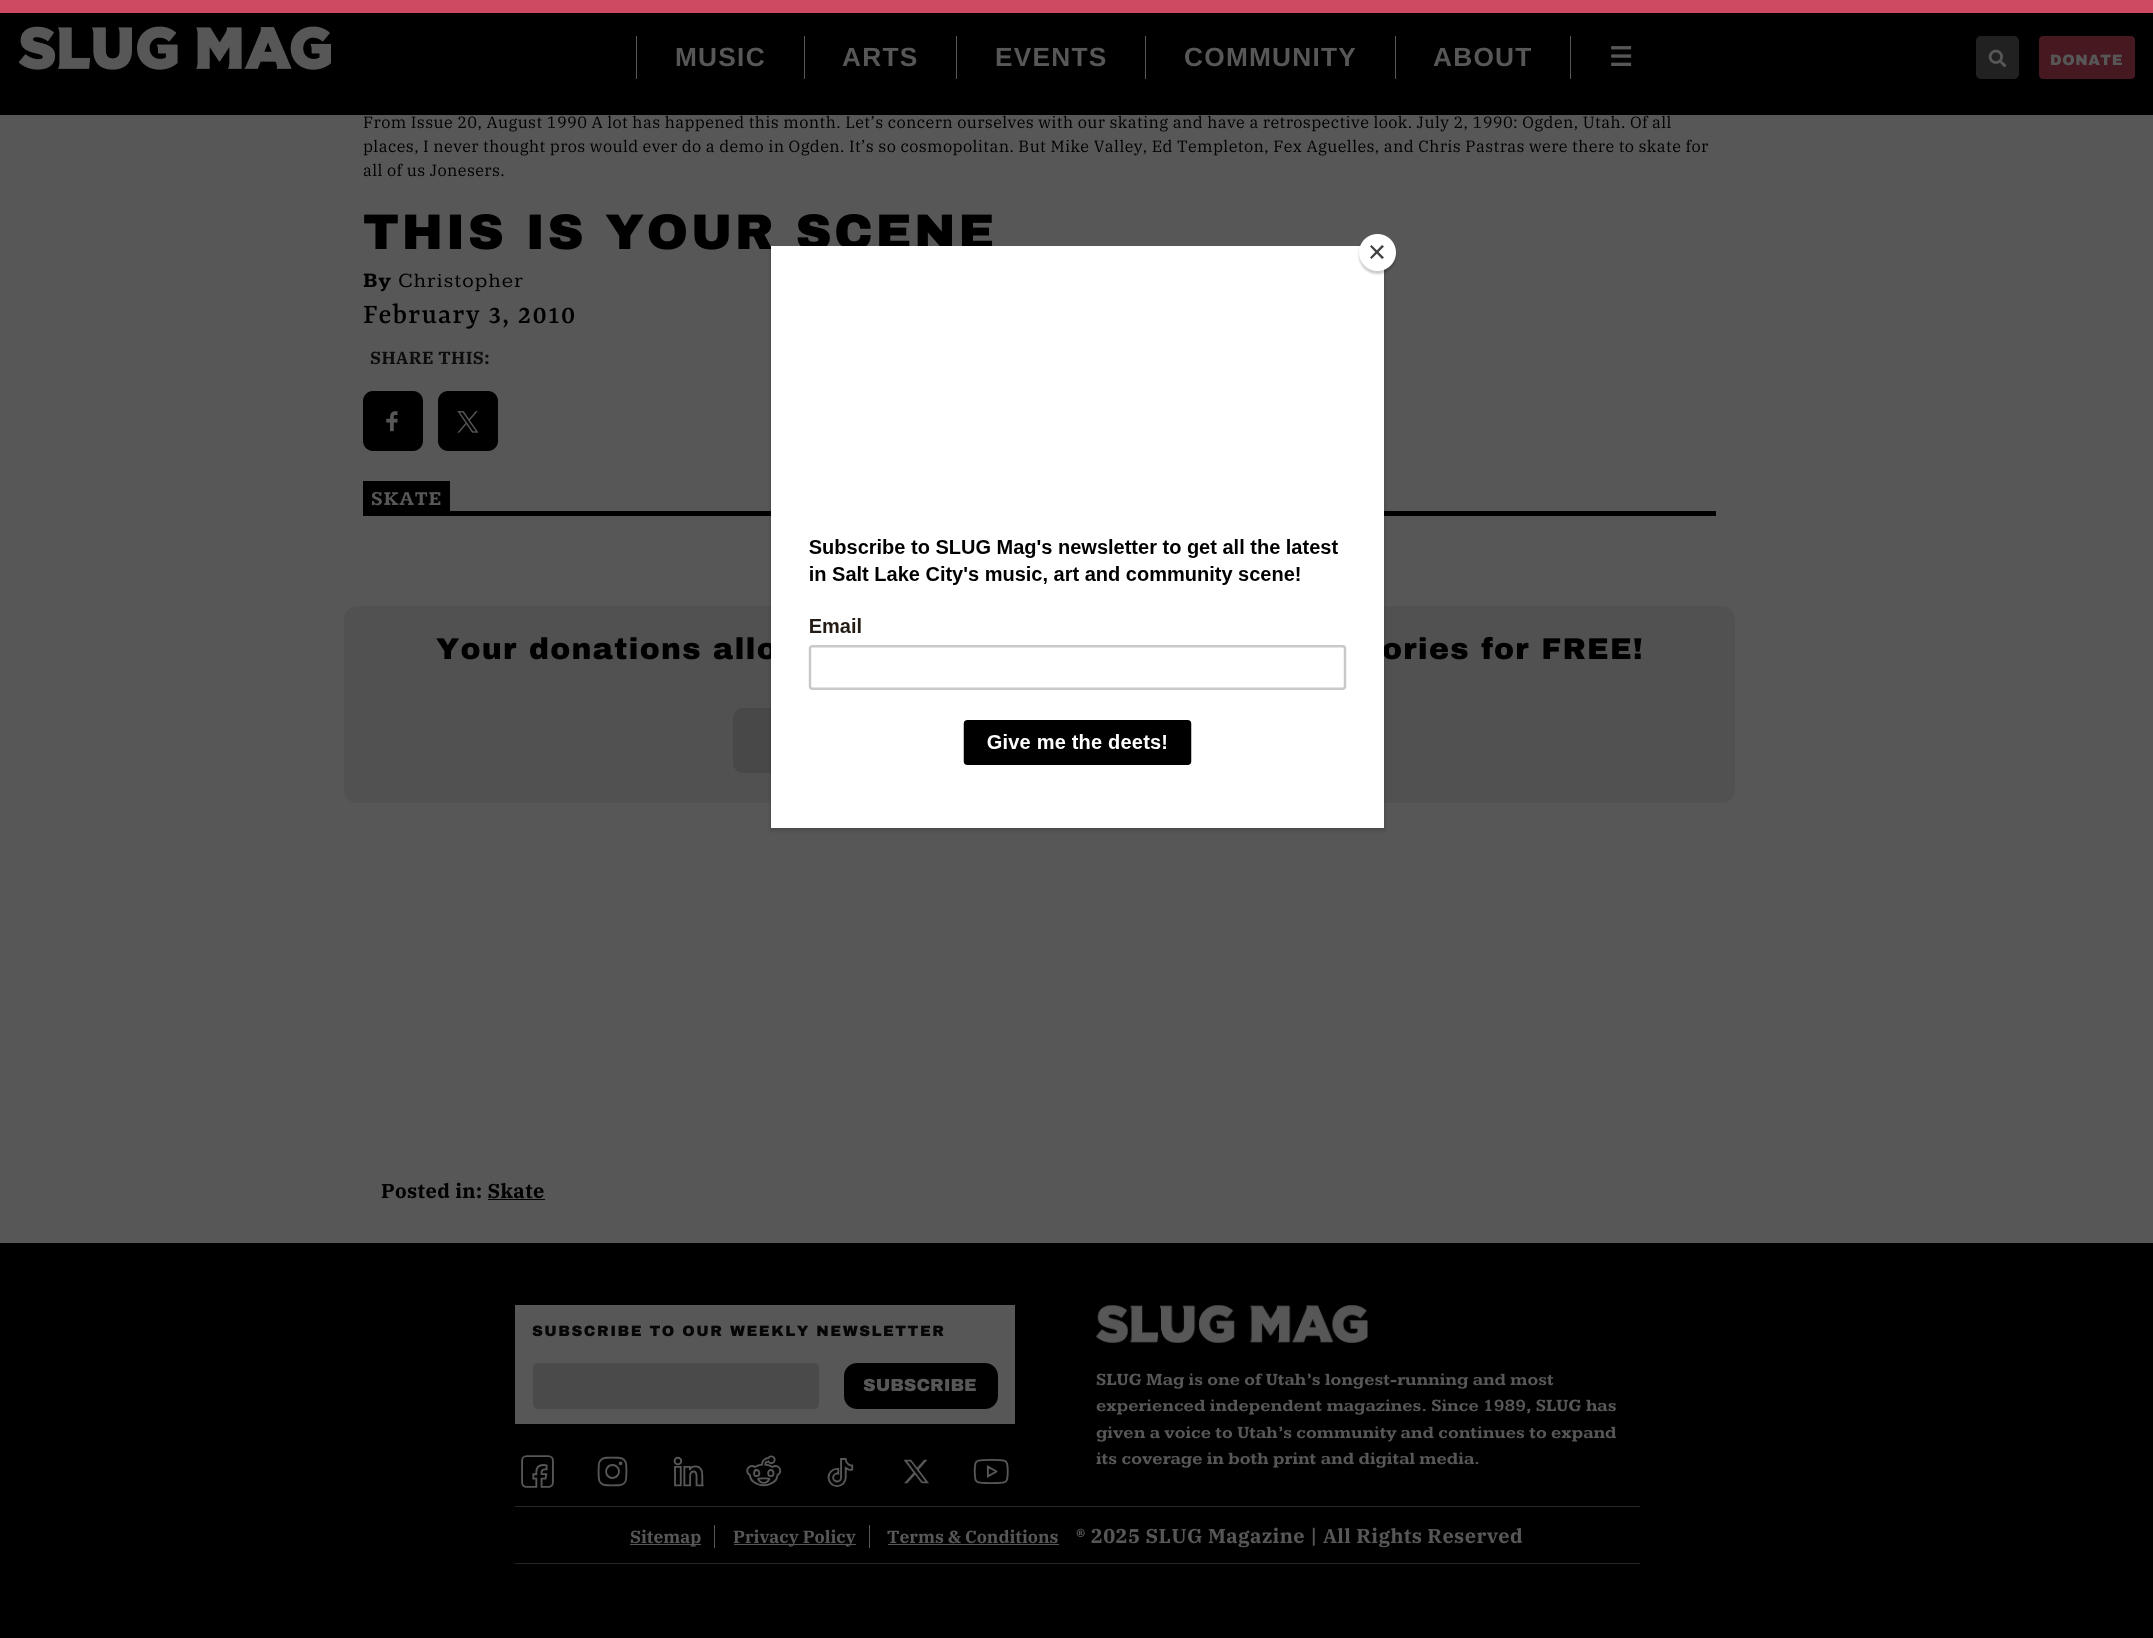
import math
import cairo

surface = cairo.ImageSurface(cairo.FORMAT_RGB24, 2153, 1638)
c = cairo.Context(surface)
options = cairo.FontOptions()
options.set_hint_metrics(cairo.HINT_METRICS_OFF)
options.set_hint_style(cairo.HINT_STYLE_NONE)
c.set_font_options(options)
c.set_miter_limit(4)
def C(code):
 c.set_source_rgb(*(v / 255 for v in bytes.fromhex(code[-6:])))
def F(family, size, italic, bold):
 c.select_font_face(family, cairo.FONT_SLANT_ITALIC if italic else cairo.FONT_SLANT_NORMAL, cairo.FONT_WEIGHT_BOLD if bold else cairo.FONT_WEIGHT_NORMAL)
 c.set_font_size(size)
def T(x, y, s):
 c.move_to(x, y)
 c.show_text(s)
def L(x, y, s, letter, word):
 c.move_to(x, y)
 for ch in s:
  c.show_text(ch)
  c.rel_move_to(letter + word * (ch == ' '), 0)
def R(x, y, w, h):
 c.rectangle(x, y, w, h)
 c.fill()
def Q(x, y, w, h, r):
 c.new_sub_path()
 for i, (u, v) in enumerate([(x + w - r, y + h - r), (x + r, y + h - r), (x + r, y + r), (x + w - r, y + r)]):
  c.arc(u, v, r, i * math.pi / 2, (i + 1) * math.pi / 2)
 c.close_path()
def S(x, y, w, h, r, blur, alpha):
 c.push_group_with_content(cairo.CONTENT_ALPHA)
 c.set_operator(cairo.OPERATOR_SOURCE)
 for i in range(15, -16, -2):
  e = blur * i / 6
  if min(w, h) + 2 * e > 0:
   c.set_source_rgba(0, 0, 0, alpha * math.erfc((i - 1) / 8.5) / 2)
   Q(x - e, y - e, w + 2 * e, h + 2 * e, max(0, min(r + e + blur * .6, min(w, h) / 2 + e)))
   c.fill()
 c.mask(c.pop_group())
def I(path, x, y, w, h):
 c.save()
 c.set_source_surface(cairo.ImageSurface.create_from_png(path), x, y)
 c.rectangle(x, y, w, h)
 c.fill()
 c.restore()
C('575757')
c.paint()
C('ce4a62')
R(0,0,2153,13)
C('000000')
R(0,13,2153,102)
I('1.png',19,26,312,44)
C('575757')
R(636,36,1,43)
F('Liberation Sans',26.25,0,1)
L(675,66,'MUSIC',1.25,0)
R(804,36,1,43)
L(842,66,'ARTS',1.25,0)
R(956,36,1,43)
L(995,66,'EVENTS',1.25,0)
R(1145,36,1,43)
L(1184,66,'COMMUNITY',1.25,0)
R(1395,36,1,43)
L(1433,66,'ABOUT',1.25,0)
R(1570,36,1,43)
F('DejaVu Sans',26.25,0,1)
L(1609,66,'☰',1.25,0)
C('212121')
Q(1976,36,43,43,5)
c.fill()
I('2.png',1988,49,19,19)
C('461921')
Q(2039,36,96,43,4)
c.fill()
F('Archivo Black Black',15,0,0)
C('575757')
L(2050,65,'DONATE',.5,0)
F('IBM Plex Serif',16.25,0,0)
C('000000')
L(363,128,'From Issue 20, August 1990 A lot has happened this month. Let’s concern ourselves with our skating and have a retrospective look. July 2, 1990: Ogden, Utah. Of all',.4,0)
L(363,152,'places, I never thought pros would ever do a demo in Ogden. It’s so cosmopolitan. But Mike Valley, Ed Templeton, Fex Aguelles, and Chris Pastras were there to skate for',.4,0)
L(363,176,'all of us Jonesers.',.4,0)
F('Archivo Black Black',50,0,0)
L(363,249,'THIS IS YOUR SCENE',2.5,0)
F('Kameron',21,0,1)
L(363,287,'By',1.25,0)
F('Kameron',21,0,0)
L(398,287,'Christopher',1.25,0)
F('Rasa Medium',30,0,0)
L(363,323,'February 3, 2010',1.25,0)
F('IBM Plex Serif',17.5,0,1)
C('0d0d0d')
L(370,364,'SHARE THIS:',.4,0)
C('000000')
Q(363,391,60,60,10)
c.fill()
I('3.png',386,411,12,21)
Q(438,391,60,60,10)
c.fill()
I('4.png',457,411,22,22)
R(363,511,1353,5)
R(363,481,87,30)
F('Kameron',20,0,1)
C('575757')
L(371,505,'SKATE',1,0)
C('515151')
Q(344,606,1391,197,13)
c.fill()
F('Archivo Black Black',30,0,0)
C('000000')
L(436,659,'Your donations allo',1.25,0)
L(1382,659,'ories for FREE!',1.25,0)
C('484848')
Q(733,708,275,65,10)
c.fill()
F('IBM Plex Serif',20,0,1)
C('000000')
L(381,1198,'Posted in: Skate',.4,0)
R(488,1199,57,1)
C('000000')
S(771,249,613,581,0,2.5,.2)
I('5.png',771,246,613,582)
S(1359,236,37,38,18.5,1,.2)
C('ffffff')
c.arc(1377.5,252.5,18.5,0,2 * math.pi)
c.fill()
C('414141')
c.new_path()
c.move_to(1382,245)
c.line_to(1384,246.5)
c.line_to(1371.5,259)
c.line_to(1370,257.5)
c.close_path()
c.fill()
c.new_path()
c.move_to(1370,246.5)
c.line_to(1371.5,245)
c.line_to(1384,257.5)
c.line_to(1382,259)
c.close_path()
c.fill()
C('000000')
R(0,1243,2153,395)
C('575757')
R(515,1305,500,119)
F('Archivo Black Black',15,0,0)
C('060606')
L(532,1336,'SUBSCRIBE TO OUR WEEKLY NEWSLETTER',1.5,0)
C('4a4a4a')
Q(533,1363,286,46,5)
c.fill()
C('000000')
Q(844,1363,154,46,13)
c.fill()
F('Archivo Black Black',17.5,0,0)
C('575757')
T(863,1391,'SUBSCRIBE')
I('6.png',521,1455,33,33)
I('7.png',597,1456,31,31)
I('8.png',673,1456,32,31)
I('9.png',746,1455,36,32)
I('10.png',827,1458,27,29)
I('11.png',903,1459,26,25)
I('12.png',973,1459,36,25)
I('13.png',1096,1305,272,38)
F('Kameron',17.5,0,1)
T(1096,1385,'SLUG Mag is one of Utah’s longest-running and most')
T(1096,1411,'experienced independent magazines. Since 1989, SLUG has')
T(1096,1438,'given a voice to Utah’s community and continues to expand')
T(1096,1464,'its coverage in both print and digital media.')
C('262626')
R(515,1506,1125,1)
C('575757')
R(630,1544,71,1)
F('IBM Plex Serif',17.5,0,1)
T(630,1543,'Sitemap')
R(714,1525,1,23)
R(734,1544,122,1)
T(733,1543,'Privacy Policy')
R(869,1525,1,23)
T(887,1543,'Terms & Conditions')
R(888,1544,171,1)
F('IBM Plex Serif',20,0,1)
L(1076,1543,'® 2025 SLUG Magazine | All Rights Reserved',.4,0)
C('262626')
R(515,1563,1125,1)
surface.write_to_png('o.png')
